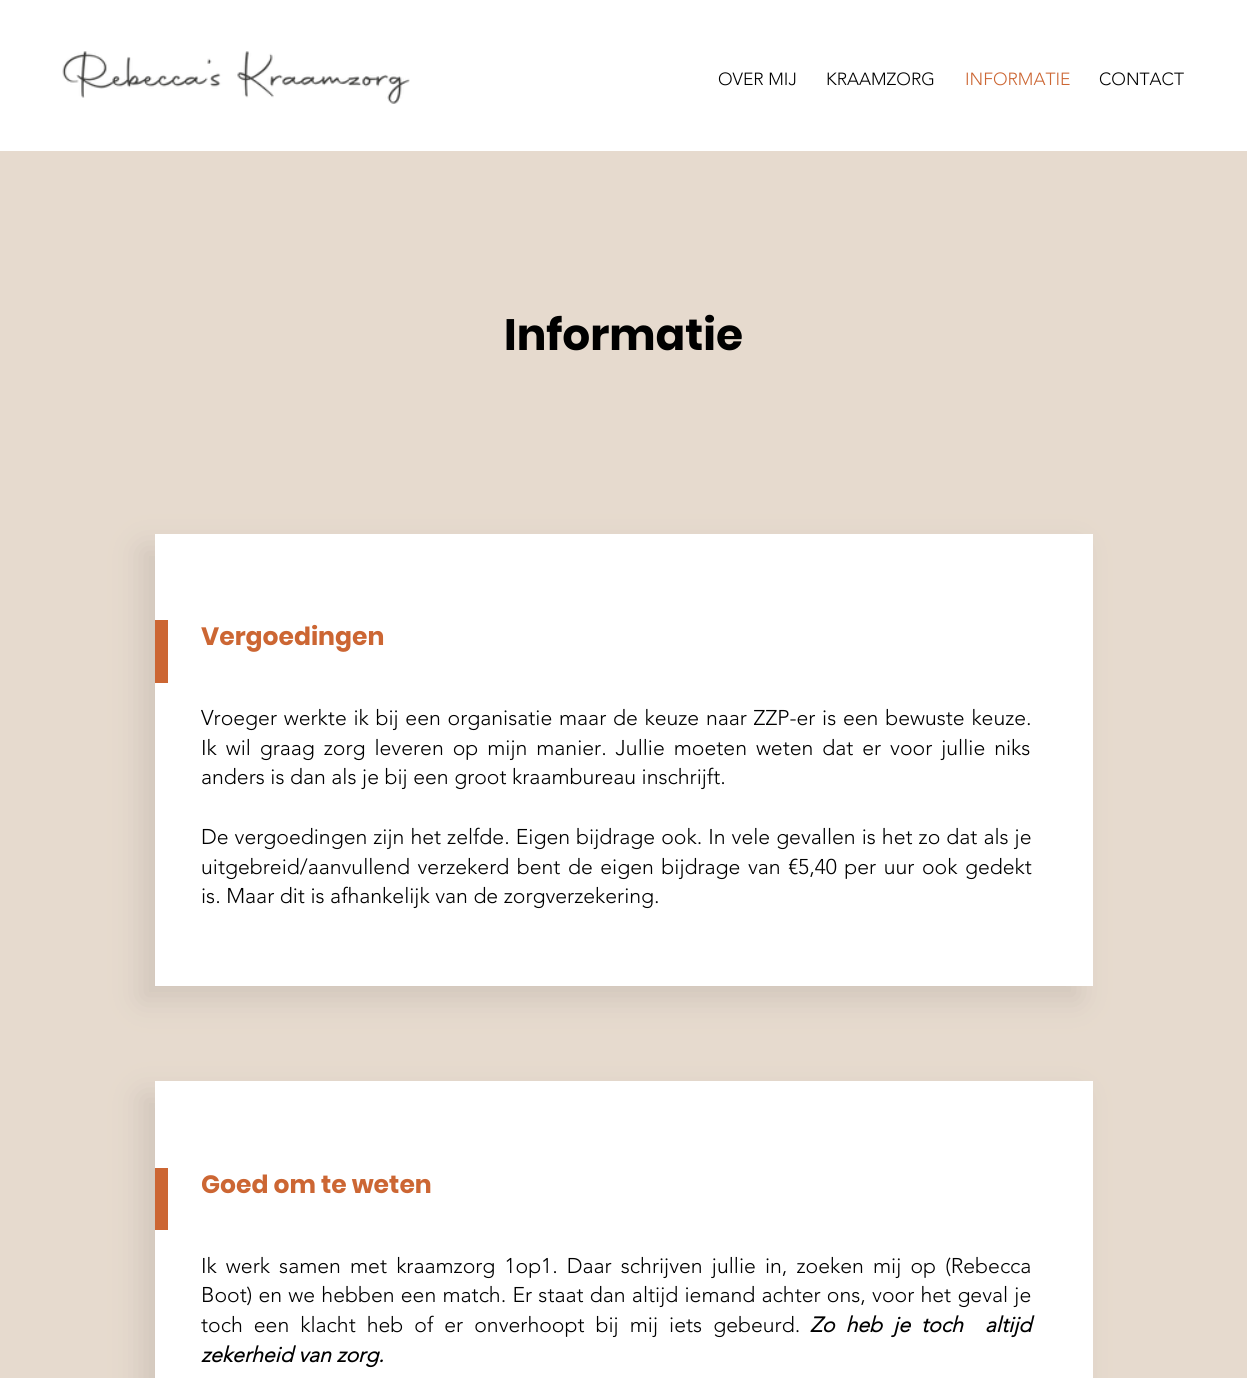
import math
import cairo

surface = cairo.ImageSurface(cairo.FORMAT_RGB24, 1247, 1378)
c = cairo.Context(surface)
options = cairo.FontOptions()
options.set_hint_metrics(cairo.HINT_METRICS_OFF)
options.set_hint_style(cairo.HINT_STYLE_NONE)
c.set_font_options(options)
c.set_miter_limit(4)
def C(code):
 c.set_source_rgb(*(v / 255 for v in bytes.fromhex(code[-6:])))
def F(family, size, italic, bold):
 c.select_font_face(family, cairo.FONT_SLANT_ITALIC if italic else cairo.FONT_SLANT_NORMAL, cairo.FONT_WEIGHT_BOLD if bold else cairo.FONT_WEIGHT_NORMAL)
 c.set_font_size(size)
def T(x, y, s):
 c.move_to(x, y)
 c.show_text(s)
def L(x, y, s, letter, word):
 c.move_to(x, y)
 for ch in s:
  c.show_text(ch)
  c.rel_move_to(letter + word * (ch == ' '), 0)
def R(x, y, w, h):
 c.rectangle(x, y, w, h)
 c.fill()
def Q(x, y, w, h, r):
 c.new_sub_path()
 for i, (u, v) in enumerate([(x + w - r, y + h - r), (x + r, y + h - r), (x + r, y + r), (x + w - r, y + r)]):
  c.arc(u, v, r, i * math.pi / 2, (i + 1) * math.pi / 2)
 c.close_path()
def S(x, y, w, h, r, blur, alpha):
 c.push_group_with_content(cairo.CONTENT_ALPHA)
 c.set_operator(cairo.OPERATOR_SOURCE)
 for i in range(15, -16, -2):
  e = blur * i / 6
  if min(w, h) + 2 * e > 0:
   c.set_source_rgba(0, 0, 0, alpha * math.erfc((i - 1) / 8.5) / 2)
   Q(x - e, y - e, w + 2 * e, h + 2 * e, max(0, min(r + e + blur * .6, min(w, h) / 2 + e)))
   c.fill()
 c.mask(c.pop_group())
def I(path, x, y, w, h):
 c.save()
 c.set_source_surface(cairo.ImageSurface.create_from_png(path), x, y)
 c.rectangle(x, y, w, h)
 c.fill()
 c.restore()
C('e6dace')
c.paint()
C('ffffff')
R(0,0,1247,151)
I('1.png',62,51,348,53)
F('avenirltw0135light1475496 Light',17.5,0,0)
C('000000')
T(718,85,'OVER MIJ')
T(826,85,'KRAAMZORG')
C('cc6633')
T(965,85,'INFORMATIE')
C('000000')
T(1099,85,'CONTACT')
F('Poppins',43.75,0,1)
T(504,350,'Informatie')
C('8a837c')
S(141,548,938,452,0,15.5,.23)
C('ffffff')
R(155,534,938,452)
C('cc6633')
R(155,620,13,63)
F('Poppins',25,0,1)
T(201,645,'Vergoedingen')
F('avenirltw0135light1475496 Light',21.25,0,0)
C('000000')
L(201,725,'Vroeger werkte ik bij een organisatie maar de keuze naar ZZP-er is een bewuste keuze.',0,1.2)
L(201,755,'Ik wil graag zorg leveren op mijn manier. Jullie moeten weten dat er voor jullie niks',0,3.4)
T(201,784,'anders is dan als je bij een groot kraambureau inschrijft.')
L(201,844,'De vergoedingen zijn het zelfde. Eigen bijdrage ook. In vele gevallen is het zo dat als je',0,.5)
L(201,874,'uitgebreid/aanvullend verzekerd bent de eigen bijdrage van €5,40 per uur ook gedekt',0,2)
T(201,903,'is. Maar dit is afhankelijk van de zorgverzekering.')
C('8a837c')
S(141,1095,938,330,0,15.5,.23)
C('ffffff')
R(155,1081,938,297)
C('cc6633')
R(155,1168,13,62)
F('Poppins',25,0,1)
T(201,1193,'Goed om te weten')
F('avenirltw0135light1475496 Light',21.25,0,0)
C('000000')
L(201,1273,'Ik werk samen met kraamzorg 1op1. Daar schrijven jullie in, zoeken mij op (Rebecca',0,3.6)
L(201,1302,'Boot) en we hebben een match. Er staat dan altijd iemand achter ons, voor het geval je',0,.7)
L(201,1332,'toch een klacht heb of er onverhoopt bij mij iets gebeurd.',0,5.5)
F('avenirltw0135light1475496',21.25,1,1)
L(810,1332,'Zo heb je toch  altijd',0,5.5)
T(201,1362,'zekerheid van zorg.')
surface.write_to_png('o.png')
